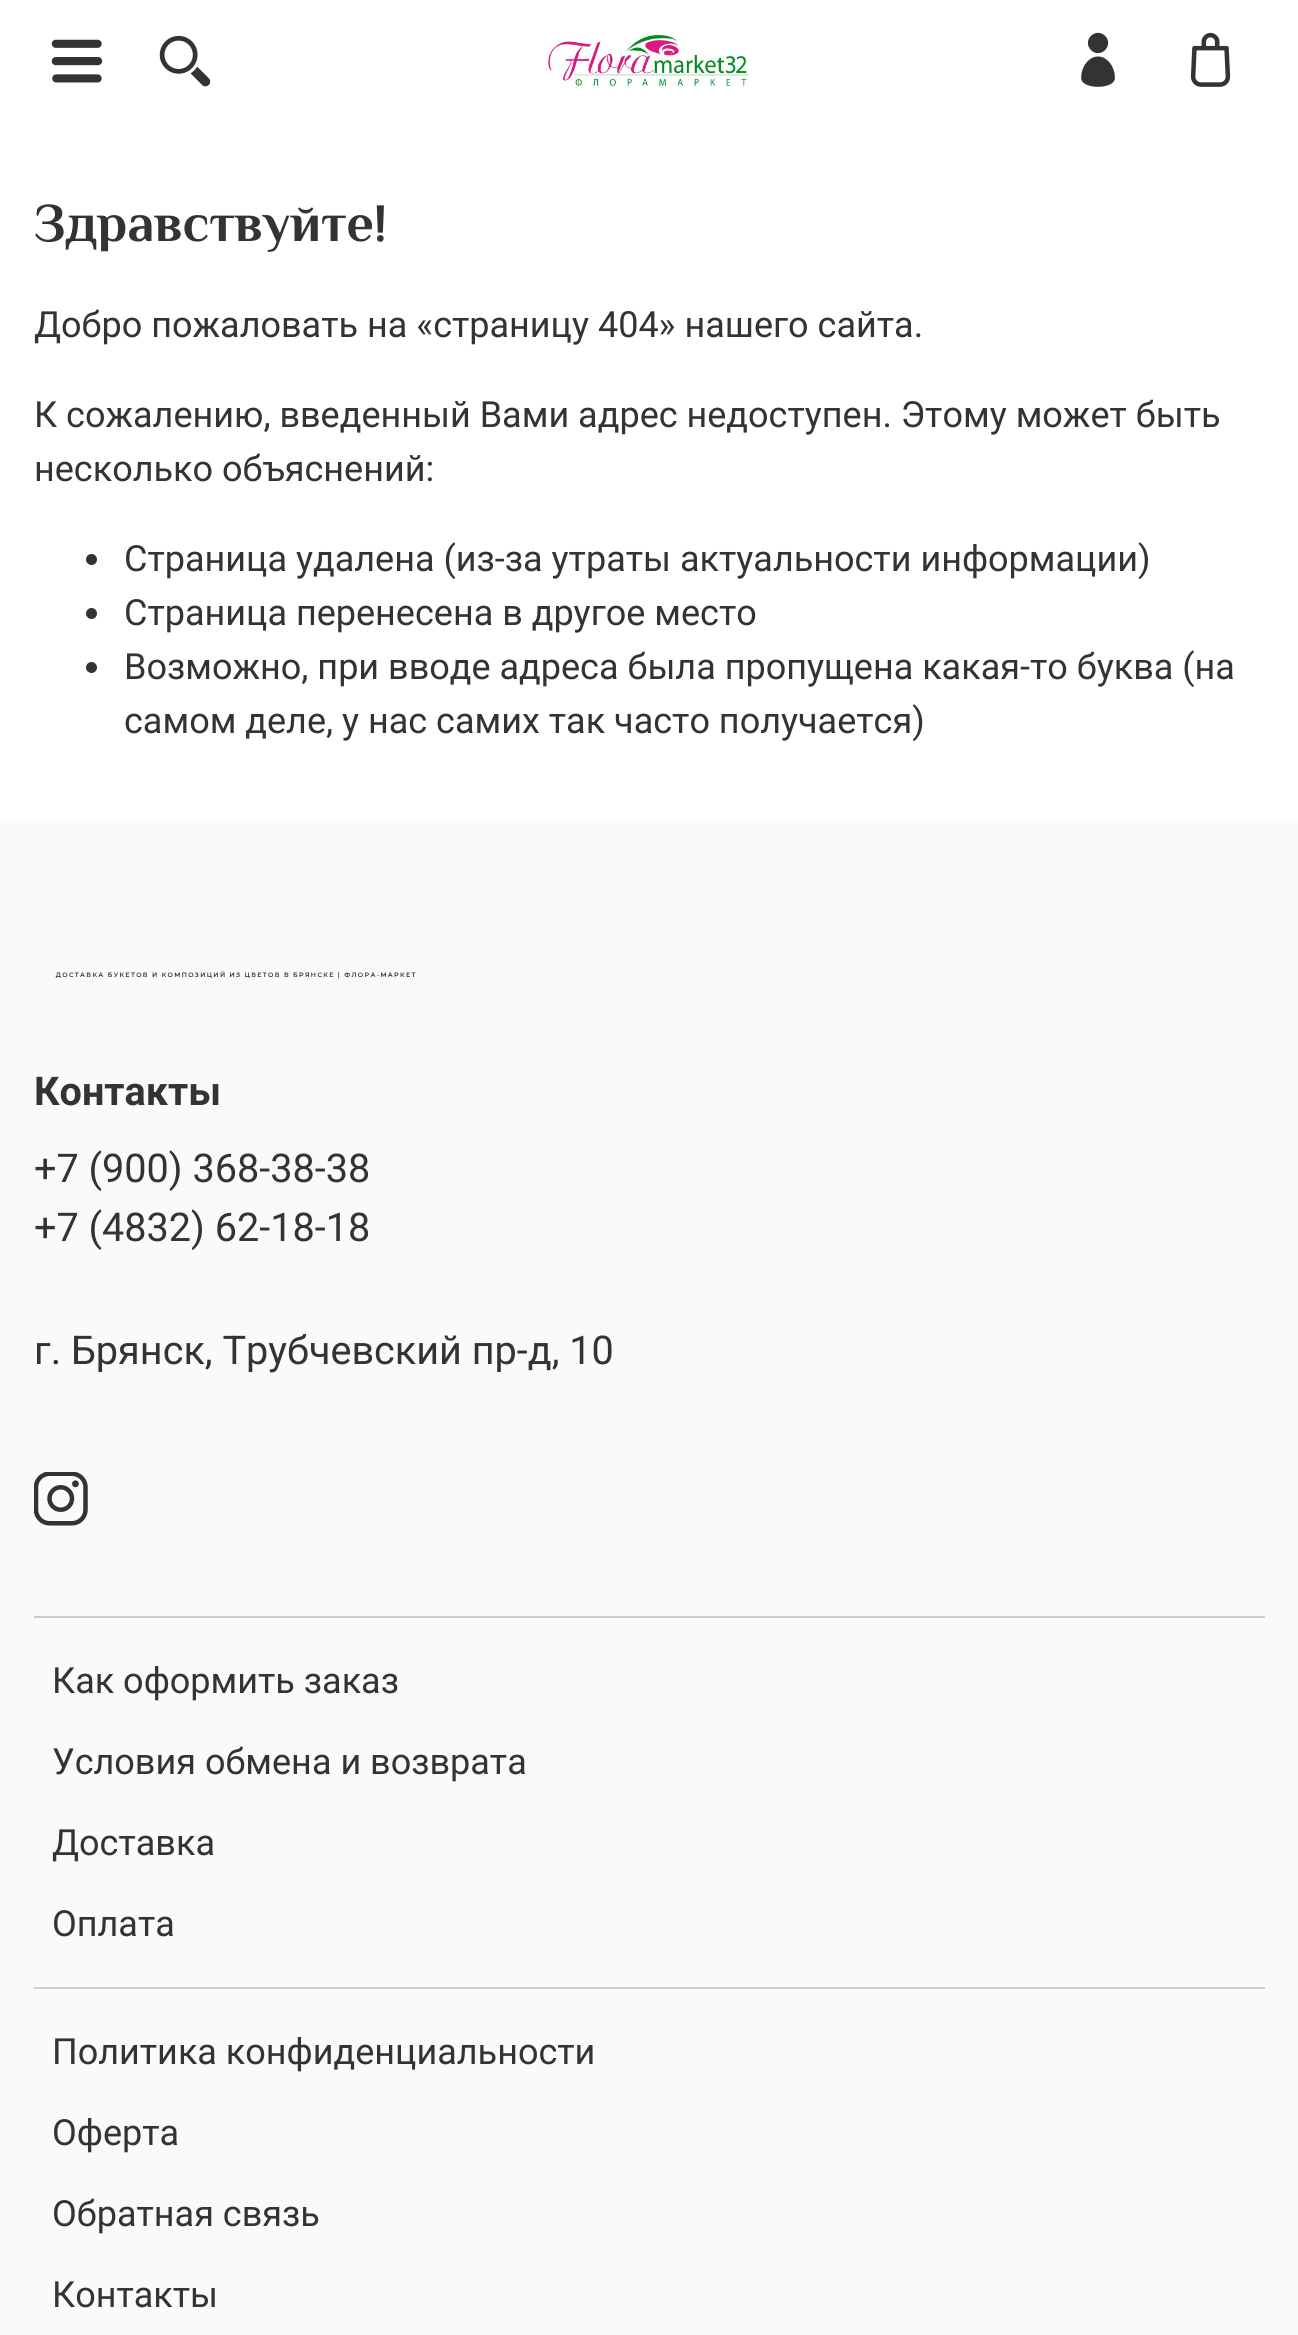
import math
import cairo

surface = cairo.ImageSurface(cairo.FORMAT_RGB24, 1298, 2335)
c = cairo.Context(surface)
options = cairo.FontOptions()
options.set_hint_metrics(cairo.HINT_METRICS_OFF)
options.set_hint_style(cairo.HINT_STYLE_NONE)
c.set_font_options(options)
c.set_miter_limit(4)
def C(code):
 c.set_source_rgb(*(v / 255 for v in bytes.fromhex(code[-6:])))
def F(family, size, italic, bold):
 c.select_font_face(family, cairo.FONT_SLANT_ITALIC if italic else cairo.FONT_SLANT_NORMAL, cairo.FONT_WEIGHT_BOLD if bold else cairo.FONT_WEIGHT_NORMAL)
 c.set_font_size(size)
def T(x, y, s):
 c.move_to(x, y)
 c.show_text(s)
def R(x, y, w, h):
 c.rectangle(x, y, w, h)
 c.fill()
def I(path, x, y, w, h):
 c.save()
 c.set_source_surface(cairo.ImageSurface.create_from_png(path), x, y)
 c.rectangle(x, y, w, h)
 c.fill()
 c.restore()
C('ffffff')
c.paint()
I('1.png',51,39,52,44)
I('2.png',159,35,52,52)
I('3.png',546,34,203,54)
I('4.png',1081,32,34,55)
I('5.png',1190,32,41,55)
F('El Messiri',54,0,1)
C('333333')
T(34,241,'Здравствуйте!')
F('Roboto',36,0,0)
T(34,337,'Добро пожаловать на «страницу 404» нашего сайта.')
T(34,427,'К сожалению, введенный Вами адрес недоступен. Этому может быть')
T(34,481,'несколько объяснений:')
c.new_path()
c.arc(91.5,559.5,5.5,0,2 * math.pi)
c.fill()
T(124,571,'Страница удалена (из-за утраты актуальности информации)')
c.new_path()
c.arc(91.5,613.5,5.5,0,2 * math.pi)
c.fill()
T(124,625,'Страница перенесена в другое место')
c.new_path()
c.arc(91.5,667.5,5.5,0,2 * math.pi)
c.fill()
T(124,679,'Возможно, при вводе адреса была пропущена какая-то буква (на')
T(124,733,'самом деле, у нас самих так часто получается)')
C('fafafa')
R(0,821,1298,1514)
I('6.png',55,971,361,8)
F('Roboto',39.6,0,1)
C('333333')
T(34,1105,'Контакты')
F('Roboto',39.6,0,0)
T(34,1182,'+7 (900) 368-38-38')
T(34,1241,'+7 (4832) 62-18-18')
T(34,1364,'г. Брянск, Трубчевский пр-д, 10')
I('7.png',34,1472,54,54)
C('cccccc')
R(34,1616,1231,2)
F('Roboto',36,0,0)
C('333333')
T(52,1693,'Как оформить заказ')
T(52,1774,'Условия обмена и возврата')
T(52,1855,'Доставка')
T(52,1936,'Оплата')
C('cccccc')
R(34,1987,1231,2)
C('333333')
T(52,2064,'Политика конфиденциальности')
T(52,2145,'Оферта')
T(52,2226,'Обратная связь')
T(52,2307,'Контакты')
surface.write_to_png('o.png')
